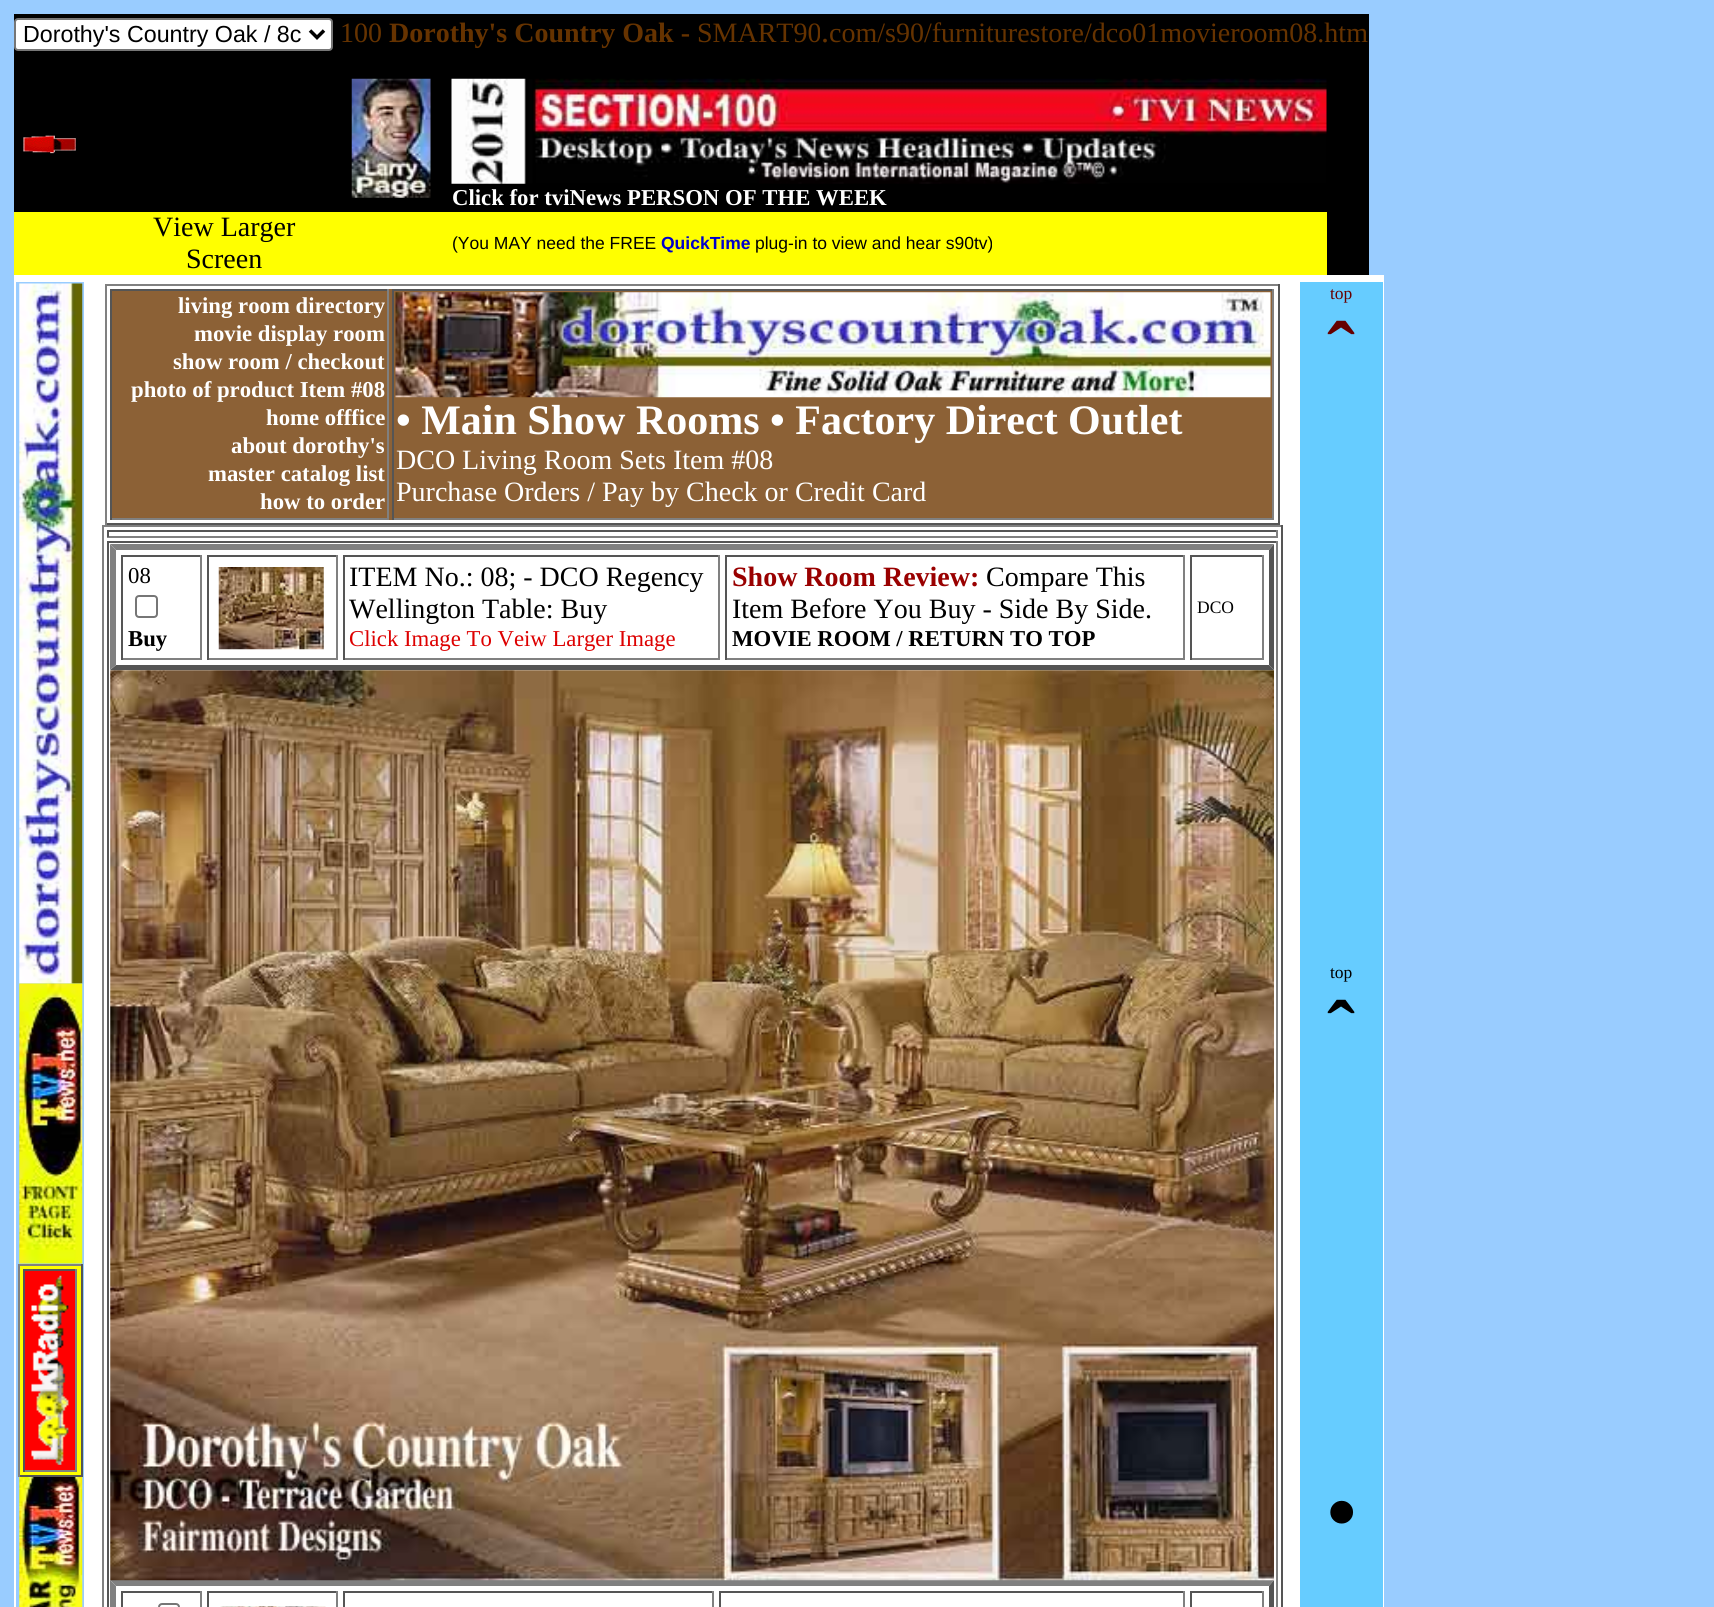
import math
import cairo

surface = cairo.ImageSurface(cairo.FORMAT_RGB24, 1714, 1607)
c = cairo.Context(surface)
options = cairo.FontOptions()
options.set_hint_metrics(cairo.HINT_METRICS_OFF)
options.set_hint_style(cairo.HINT_STYLE_NONE)
c.set_font_options(options)
c.set_miter_limit(4)
def C(code):
 c.set_source_rgb(*(v / 255 for v in bytes.fromhex(code[-6:])))
def F(family, size, italic, bold):
 c.select_font_face(family, cairo.FONT_SLANT_ITALIC if italic else cairo.FONT_SLANT_NORMAL, cairo.FONT_WEIGHT_BOLD if bold else cairo.FONT_WEIGHT_NORMAL)
 c.set_font_size(size)
def T(x, y, s):
 c.move_to(x, y)
 c.show_text(s)
def R(x, y, w, h):
 c.rectangle(x, y, w, h)
 c.fill()
def Q(x, y, w, h, r):
 c.new_sub_path()
 for i, (u, v) in enumerate([(x + w - r, y + h - r), (x + r, y + h - r), (x + r, y + r), (x + w - r, y + r)]):
  c.arc(u, v, r, i * math.pi / 2, (i + 1) * math.pi / 2)
 c.close_path()
def I(path, x, y, w, h):
 c.save()
 c.set_source_surface(cairo.ImageSurface.create_from_png(path), x, y)
 c.rectangle(x, y, w, h)
 c.fill()
 c.restore()
C('99ccff')
c.paint()
C('000000')
R(14,14,1355,261)
C('ffffff')
Q(15,19,317,31,3)
c.fill_preserve()
C('767676')
c.stroke()
c.new_path()
c.move_to(310,30.5)
c.line_to(317,37.5)
c.line_to(324,30.5)
C('000000')
c.set_line_width(3.5)
c.stroke()
F('Liberation Sans',23.25,0,0)
T(23,42,'Dorothy\'s Country Oak / 8c')
F('Liberation Serif',28,0,0)
C('663300')
T(340,42,'100')
F('Liberation Serif',28,0,1)
T(389,42,'Dorothy\'s Country Oak -')
F('Liberation Serif',28,0,0)
T(697,42,'SMART90')
F('Liberation Serif',32,0,0)
T(821,42,'.')
F('Liberation Serif',28,0,0)
T(829,42,'com/s90/furniturestore/dco01movieroom08.htm')
I('1.png',23,135,53,19)
I('2.png',351,78,80,120)
I('3.png',451,78,876,106)
F('Liberation Serif',22.75,0,1)
C('ffffff')
T(452,205,'Click for tviNews PERSON OF THE WEEK')
C('ffff00')
R(14,212,1313,63)
F('Liberation Serif',28,0,0)
C('000000')
T(153,236,'View Larger')
T(186,268,'Screen')
F('Liberation Sans',17.5,0,0)
T(452,249,'(You MAY need the FREE')
F('Liberation Sans',17.5,0,1)
C('0000cc')
T(661,249,'QuickTime')
F('Liberation Sans',17.5,0,0)
C('000000')
T(755,249,'plug-in to view and hear s90tv)')
C('ffffff')
R(14,275,1370,1332)
C('99ccff')
R(16,282,68,1325)
I('4.png',19,283,64,701)
I('5.png',19,983,64,281)
C('ffff00')
R(20,1266,61,209)
C('808080')
R(18,1264,64,2)
C('555555')
R(81,1264,2,213)
R(18,1475,64,2)
C('808080')
R(18,1264,2,213)
C('ff0000')
R(25,1271,50,199)
C('555555')
R(23,1269,54,2)
C('808080')
R(75,1269,2,203)
R(23,1470,54,2)
C('555555')
R(23,1269,2,203)
I('6.png',31,1275,38,190)
I('7.png',19,1477,64,130)
C('808080')
R(105,284,1174,2)
C('555555')
R(1278,284,2,241)
R(105,523,1174,2)
C('808080')
R(105,284,2,241)
C('8c6136')
R(112,289,1160,231)
C('555555')
R(110,289,279,2)
C('808080')
R(387,289,2,231)
R(110,518,279,2)
C('555555')
R(110,289,2,231)
F('Liberation Serif',22.75,0,1)
C('ffffff')
T(178,313,'living room directory')
T(194,341,'movie display room')
T(173,369,'show room / checkout')
T(131,397,'photo of product Item #08')
T(266,425,'home offfice')
T(231,453,'about dorothy\'s')
T(208,481,'master catalog list')
T(260,509,'how to order')
C('555555')
R(392,289,882,2)
C('808080')
R(1272,289,2,231)
R(392,518,882,2)
C('555555')
R(392,289,2,231)
I('8.png',395,292,876,106)
F('Liberation Serif',42,0,1)
C('ffffff')
T(396,434,'• Main Show Rooms • Factory Direct Outlet')
F('Liberation Serif',28,0,0)
T(396,469,'DCO Living Room Sets Item #08')
T(396,501,'Purchase Orders / Pay by Check or Credit Card')
C('808080')
R(102,525,1181,2)
C('555555')
R(1281,525,2,1082)
C('808080')
R(102,525,2,1082)
C('555555')
R(107,530,1171,2)
C('808080')
R(1276,530,2,7)
R(107,536,1171,2)
C('555555')
R(107,530,2,7)
R(107,541,1171,2)
C('808080')
R(1276,541,2,1066)
C('555555')
R(107,541,2,1066)
C('808080')
c.new_path()
c.move_to(110,544)
c.line_to(1274,544)
c.line_to(1269,550)
c.line_to(116,550)
c.close_path()
c.fill()
C('555555')
c.new_path()
c.move_to(1274,544)
c.line_to(1274,670)
c.line_to(1269,665)
c.line_to(1269,550)
c.close_path()
c.fill()
c.new_path()
c.move_to(1274,670)
c.line_to(110,670)
c.line_to(116,665)
c.line_to(1269,665)
c.close_path()
c.fill()
C('808080')
c.new_path()
c.move_to(110,670)
c.line_to(110,544)
c.line_to(116,550)
c.line_to(116,665)
c.close_path()
c.fill()
C('555555')
R(121,555,80,2)
C('808080')
R(200,555,2,105)
R(121,658,80,2)
C('555555')
R(121,555,2,105)
F('Liberation Serif',22.75,0,0)
C('000000')
T(128,583,'08')
Q(136,596,21,21,3)
C('767676')
c.set_line_width(2)
c.stroke()
F('Liberation Serif',22.75,0,1)
C('000000')
T(128,646,'Buy')
C('555555')
R(207,555,131,2)
C('808080')
R(336,555,2,105)
R(207,658,131,2)
C('555555')
R(207,555,2,105)
I('9.png',218,567,106,83)
R(343,555,376,2)
C('808080')
R(718,555,2,105)
R(343,658,376,2)
C('555555')
R(343,555,2,105)
F('Liberation Serif',28,0,0)
C('000000')
T(349,586,'ITEM No.: 08; - DCO Regency')
T(349,618,'Wellington Table: Buy')
F('Liberation Serif',22.75,0,0)
C('dd0000')
T(349,646,'Click Image To Veiw Larger Image')
C('555555')
R(725,555,460,2)
C('808080')
R(1183,555,2,105)
R(725,658,460,2)
C('555555')
R(725,555,2,105)
F('Liberation Serif',28,0,1)
C('990000')
T(732,586,'Show Room Review:')
F('Liberation Serif',28,0,0)
C('000000')
T(986,586,'Compare This')
T(732,618,'Item Before You Buy - Side By Side.')
F('Liberation Serif',22.75,0,1)
T(732,646,'MOVIE ROOM / RETURN TO TOP')
C('555555')
R(1190,555,74,2)
C('808080')
R(1262,555,2,105)
R(1190,658,74,2)
C('555555')
R(1190,555,2,105)
F('Liberation Serif',17.5,0,0)
C('000000')
T(1197,613,'DCO')
C('808080')
c.new_path()
c.move_to(110,1580)
c.line_to(1274,1580)
c.line_to(1269,1586)
c.line_to(116,1586)
c.close_path()
c.fill()
C('555555')
c.new_path()
c.move_to(1274,1580)
c.line_to(1274,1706)
c.line_to(1269,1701)
c.line_to(1269,1586)
c.close_path()
c.fill()
C('808080')
c.new_path()
c.move_to(110,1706)
c.line_to(110,1580)
c.line_to(116,1586)
c.line_to(116,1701)
c.close_path()
c.fill()
I('10.png',110,670,1164,911)
C('555555')
R(121,1591,80,2)
C('808080')
R(200,1591,2,16)
C('555555')
R(121,1591,2,16)
Q(159,1604,20,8,3)
C('767676')
c.stroke()
C('555555')
R(207,1591,131,2)
C('808080')
R(336,1591,2,16)
C('555555')
R(207,1591,2,16)
I('11.png',220,1606,106,1)
R(343,1591,371,2)
C('808080')
R(712,1591,2,16)
C('555555')
R(343,1591,2,16)
R(719,1591,466,2)
C('808080')
R(1183,1591,2,16)
C('555555')
R(719,1591,2,16)
R(1190,1591,74,2)
C('808080')
R(1262,1591,2,16)
C('555555')
R(1190,1591,2,16)
C('66ccff')
R(1300,282,83,1325)
C('660000')
T(1330,299,'top')
F('Liberation Serif',84,0,1)
T(1327,380,'ˆ')
F('Liberation Serif',17.5,0,0)
C('000000')
T(1330,978,'top')
F('Liberation Serif',84,0,1)
T(1327,1059,'ˆ')
T(1327,1540,'•')
surface.write_to_png('o.png')
